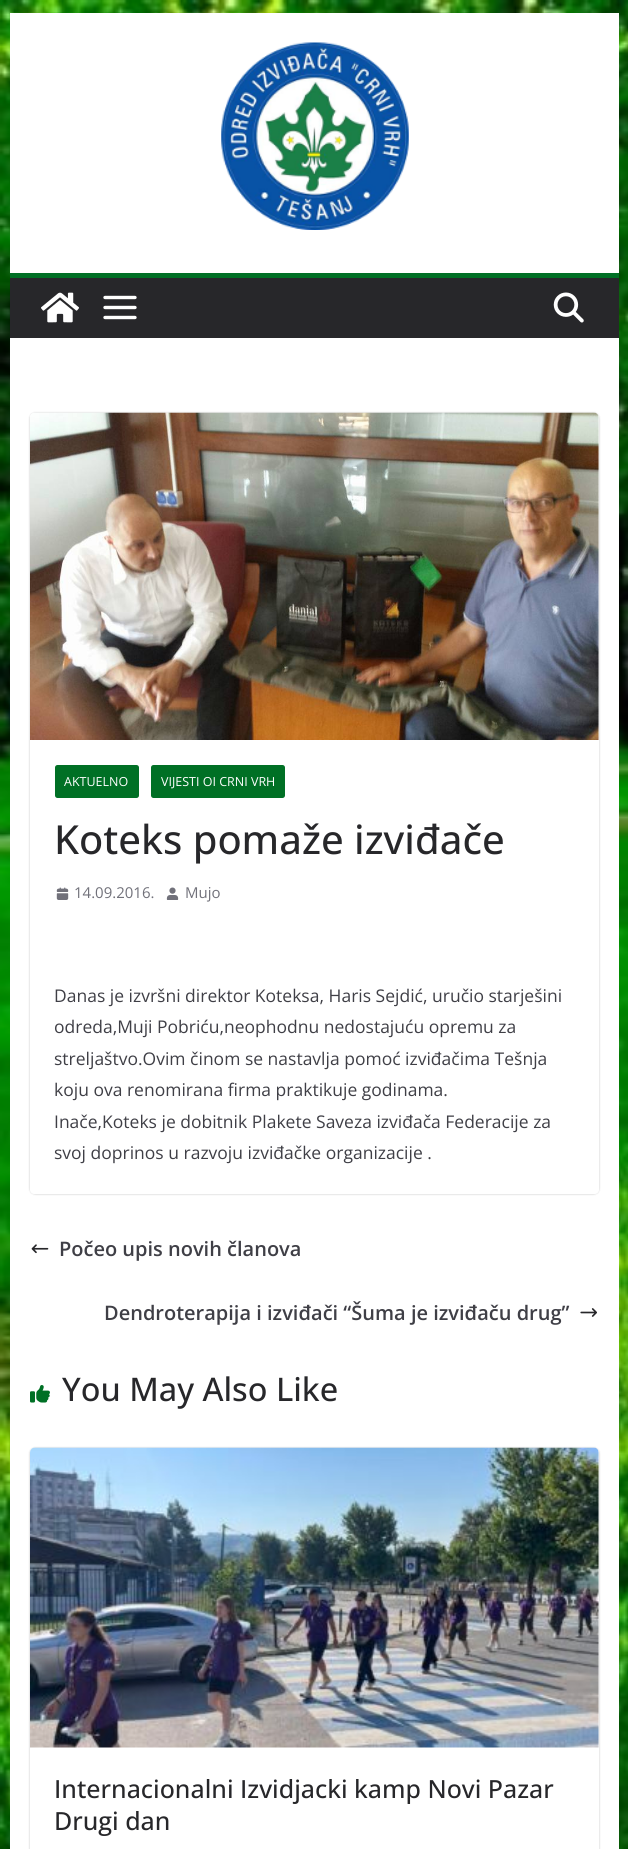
import math
import cairo

surface = cairo.ImageSurface(cairo.FORMAT_RGB24, 628, 1849)
c = cairo.Context(surface)
options = cairo.FontOptions()
options.set_hint_metrics(cairo.HINT_METRICS_OFF)
options.set_hint_style(cairo.HINT_STYLE_NONE)
c.set_font_options(options)
c.set_miter_limit(4)
def C(code):
 c.set_source_rgb(*(v / 255 for v in bytes.fromhex(code[-6:])))
def F(family, size, italic, bold):
 c.select_font_face(family, cairo.FONT_SLANT_ITALIC if italic else cairo.FONT_SLANT_NORMAL, cairo.FONT_WEIGHT_BOLD if bold else cairo.FONT_WEIGHT_NORMAL)
 c.set_font_size(size)
def T(x, y, s):
 c.move_to(x, y)
 c.show_text(s)
def R(x, y, w, h):
 c.rectangle(x, y, w, h)
 c.fill()
def Q(x, y, w, h, r):
 c.new_sub_path()
 for i, (u, v) in enumerate([(x + w - r, y + h - r), (x + r, y + h - r), (x + r, y + r), (x + w - r, y + r)]):
  c.arc(u, v, r, i * math.pi / 2, (i + 1) * math.pi / 2)
 c.close_path()
def S(x, y, w, h, r, blur, alpha):
 c.push_group_with_content(cairo.CONTENT_ALPHA)
 c.set_operator(cairo.OPERATOR_SOURCE)
 for i in range(15, -16, -2):
  e = blur * i / 6
  if min(w, h) + 2 * e > 0:
   c.set_source_rgba(0, 0, 0, alpha * math.erfc((i - 1) / 8.5) / 2)
   Q(x - e, y - e, w + 2 * e, h + 2 * e, max(0, min(r + e + blur * .6, min(w, h) / 2 + e)))
   c.fill()
 c.mask(c.pop_group())
def I(path, x, y, w, h):
 c.save()
 c.set_source_surface(cairo.ImageSurface.create_from_png(path), x, y)
 c.rectangle(x, y, w, h)
 c.fill()
 c.restore()
C('ffffff')
c.paint()
I('1.png',0,0,628,1849)
C('ffffff')
R(10,13,609,260)
I('2.png',221,42,188,188)
C('27272a')
R(10,278,609,60)
C('007025')
R(10,273,609,5)
I('3.png',41,292,38,31)
I('4.png',103,295,34,25)
I('5.png',553,292,31,31)
C('ffffff')
R(10,338,609,1511)
c.save()
c.set_fill_rule(cairo.FILL_RULE_EVEN_ODD)
c.new_path()
c.move_to(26,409)
c.line_to(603,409)
c.line_to(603,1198)
c.line_to(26,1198)
c.close_path()
c.move_to(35,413)
c.line_to(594,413)
c.curve_to(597,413,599,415,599,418)
c.line_to(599,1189)
c.curve_to(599,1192,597,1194,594,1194)
c.line_to(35,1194)
c.curve_to(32,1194,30,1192,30,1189)
c.line_to(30,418)
c.curve_to(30,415,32,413,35,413)
c.close_path()
c.clip()
C('000000')
S(30,413,569,781,5,1,.24)
c.restore()
I('6.png',30,412,569,328)
C('007025')
Q(55,765,84,33,2.5)
c.fill()
F('Open Sans',12.5,0,0)
C('ffffff')
T(64,786,'AKTUELNO')
C('007025')
Q(151,765,134,33,2.5)
c.fill()
C('ffffff')
T(161,786,'VIJESTI OI CRNI VRH')
F('Open Sans Medium',40,0,0)
C('27272a')
T(54,854,'Koteks pomaže izviđače')
I('7.png',56,887,13,13)
F('Open Sans',15,0,0)
C('71717a')
T(74,898,'14.09.2016.')
I('8.png',166,887,13,13)
T(185,898,'Mujo')
F('Open Sans',17.5,0,0)
C('3f3f46')
T(54,1002,'Danas je izvršni direktor Koteksa, Haris Sejdić, uručio starješini')
T(54,1033,'odreda,Muji Pobriću,neophodnu nedostajuću opremu za')
T(54,1065,'streljaštvo.Ovim činom se nastavlja pomoć izviđačima Tešnja')
T(54,1096,'koju ova renomirana firma praktikuje godinama.')
T(54,1128,'Inače,Koteks je dobitnik Plakete Saveza izviđača Federacije za')
T(54,1159,'svoj doprinos u razvoju izviđačke organizacije .')
I('9.png',31,1244,18,10)
F('Open Sans SemiBold',20,0,0)
T(59,1256,'Počeo upis novih članova')
T(104,1320,'Dendroterapija i izviđači “Šuma je izviđaču drug”')
I('10.png',580,1308,17,9)
I('11.png',30,1385,20,18)
F('Open Sans Medium',32.5,0,0)
C('27272a')
T(62,1401,'You May Also Like')
c.save()
c.set_fill_rule(cairo.FILL_RULE_EVEN_ODD)
c.new_path()
c.move_to(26,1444)
c.line_to(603,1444)
c.line_to(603,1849)
c.line_to(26,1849)
c.close_path()
c.move_to(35,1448)
c.line_to(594,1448)
c.curve_to(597,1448,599,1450,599,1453)
c.line_to(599,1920)
c.curve_to(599,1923,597,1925,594,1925)
c.line_to(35,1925)
c.curve_to(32,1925,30,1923,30,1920)
c.line_to(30,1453)
c.curve_to(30,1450,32,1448,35,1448)
c.close_path()
c.clip()
C('000000')
S(30,1448,569,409,5,1,.24)
c.restore()
I('12.png',30,1447,569,301)
F('Open Sans Medium',25,0,0)
T(54,1798,'Internacionalni Izvidjacki kamp Novi Pazar')
T(54,1830,'Drugi dan')
surface.write_to_png('o.png')
